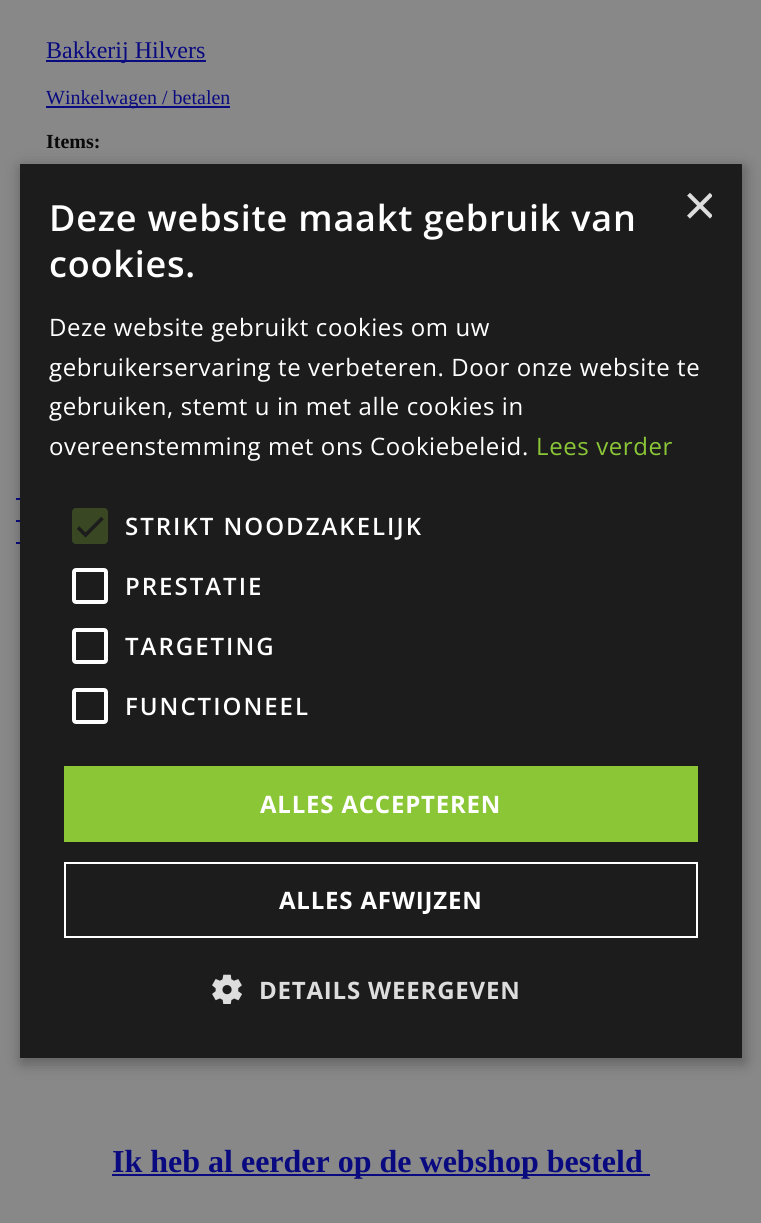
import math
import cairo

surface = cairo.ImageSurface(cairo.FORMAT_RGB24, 761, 1223)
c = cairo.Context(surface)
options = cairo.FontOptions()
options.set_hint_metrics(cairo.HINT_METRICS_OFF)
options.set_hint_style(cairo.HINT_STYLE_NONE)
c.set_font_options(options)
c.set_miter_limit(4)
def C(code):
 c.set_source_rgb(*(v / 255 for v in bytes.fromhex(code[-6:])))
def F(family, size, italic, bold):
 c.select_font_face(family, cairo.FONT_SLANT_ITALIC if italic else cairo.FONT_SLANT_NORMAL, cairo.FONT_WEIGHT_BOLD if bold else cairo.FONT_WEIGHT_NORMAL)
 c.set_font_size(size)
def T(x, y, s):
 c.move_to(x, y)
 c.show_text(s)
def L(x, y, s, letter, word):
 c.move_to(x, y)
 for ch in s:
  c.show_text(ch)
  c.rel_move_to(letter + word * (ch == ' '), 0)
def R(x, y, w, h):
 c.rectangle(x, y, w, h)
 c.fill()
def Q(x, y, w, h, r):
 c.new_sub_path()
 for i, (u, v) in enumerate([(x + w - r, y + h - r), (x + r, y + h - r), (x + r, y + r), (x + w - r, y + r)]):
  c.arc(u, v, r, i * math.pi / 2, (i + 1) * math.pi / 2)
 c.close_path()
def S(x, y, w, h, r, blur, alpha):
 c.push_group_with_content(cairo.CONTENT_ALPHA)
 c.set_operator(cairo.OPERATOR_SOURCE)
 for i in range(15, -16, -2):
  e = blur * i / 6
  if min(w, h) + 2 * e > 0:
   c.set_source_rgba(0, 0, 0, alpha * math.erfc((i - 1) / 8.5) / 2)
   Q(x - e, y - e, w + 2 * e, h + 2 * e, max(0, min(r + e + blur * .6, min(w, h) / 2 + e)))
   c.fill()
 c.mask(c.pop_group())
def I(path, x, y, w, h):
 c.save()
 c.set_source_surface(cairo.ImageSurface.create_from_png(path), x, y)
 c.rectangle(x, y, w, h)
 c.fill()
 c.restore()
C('888888')
c.paint()
C('090980')
R(46,60,160,2)
F('Liberation Serif',24,0,0)
T(46,58,'Bakkerij Hilvers')
R(46,106,184,2)
F('Liberation Serif',20,0,0)
T(46,104,'Winkelwagen / betalen')
F('Liberation Serif',20,0,1)
C('090909')
T(46,148,'Items:')
C('090980')
R(16,498,4,2)
R(16,520,4,2)
R(16,542,4,2)
R(112,1174,538,2)
F('Liberation Serif',32,0,1)
T(112,1172,'Ik heb al eerder op de webshop besteld')
C('000000')
S(22,168,722,894,0,8,.35)
C('1c1c1c')
R(20,164,722,894)
F('Open Sans SemiBold',36,0,0)
C('ffffff')
L(49,231,'Deze website maakt gebruik van',.8,0)
L(49,277,'cookies.',.8,0)
c.save()
c.rectangle(682,192,30,30)
c.clip()
F('Liberation Sans',58,0,0)
C('dddddd')
T(683,225,'×')
c.restore()
F('Open Sans',24,0,0)
L(49,336,'Deze website gebruikt cookies om uw',.6,0)
L(49,376,'gebruikerservaring te verbeteren. Door onze website te',.6,0)
L(49,415,'gebruiken, stemt u in met alle cookies in',.6,0)
L(49,455,'overeenstemming met ons Cookiebeleid.',.6,0)
C('8ac636')
L(536,455,'Lees verder',.6,0)
C('394823')
Q(72,508,36,36,4)
c.fill()
c.new_path()
c.move_to(78,527.5)
c.line_to(85.5,535)
c.line_to(102.5,518)
C('1c1c1c')
c.set_line_width(3.6)
c.stroke()
F('Open Sans SemiBold',24,0,0)
C('ffffff')
L(125,535,'STRIKT NOODZAKELIJK',2,0)
Q(74,570,32,32,2)
c.set_line_width(4)
c.stroke()
L(125,595,'PRESTATIE',2,0)
Q(74,630,32,32,2)
c.stroke()
L(125,655,'TARGETING',2,0)
Q(74,690,32,32,2)
c.stroke()
L(125,715,'FUNCTIONEEL',2,0)
C('8ac636')
R(64,766,634,76)
F('Open Sans',24,0,1)
C('ffffff')
L(260,813,'ALLES ACCEPTEREN',.8,0)
c.rectangle(65,863,632,74)
c.set_line_width(2)
c.stroke()
L(279,909,'ALLES AFWIJZEN',.8,0)
I('1.png',212,974,30,30)
C('dddddd')
L(259,999,'DETAILS WEERGEVEN',.8,0)
surface.write_to_png('o.png')
